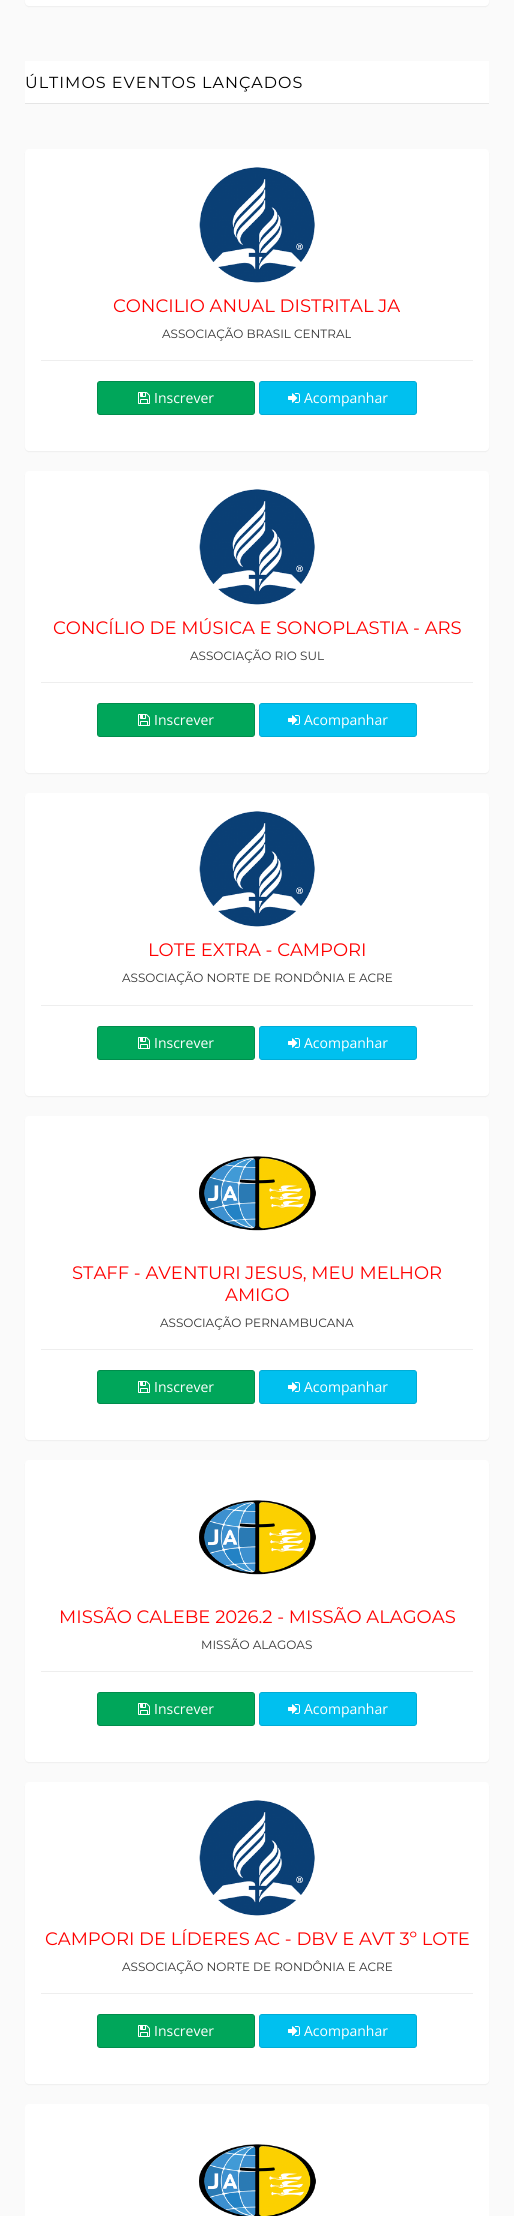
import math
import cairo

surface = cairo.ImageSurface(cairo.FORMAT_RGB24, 514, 2216)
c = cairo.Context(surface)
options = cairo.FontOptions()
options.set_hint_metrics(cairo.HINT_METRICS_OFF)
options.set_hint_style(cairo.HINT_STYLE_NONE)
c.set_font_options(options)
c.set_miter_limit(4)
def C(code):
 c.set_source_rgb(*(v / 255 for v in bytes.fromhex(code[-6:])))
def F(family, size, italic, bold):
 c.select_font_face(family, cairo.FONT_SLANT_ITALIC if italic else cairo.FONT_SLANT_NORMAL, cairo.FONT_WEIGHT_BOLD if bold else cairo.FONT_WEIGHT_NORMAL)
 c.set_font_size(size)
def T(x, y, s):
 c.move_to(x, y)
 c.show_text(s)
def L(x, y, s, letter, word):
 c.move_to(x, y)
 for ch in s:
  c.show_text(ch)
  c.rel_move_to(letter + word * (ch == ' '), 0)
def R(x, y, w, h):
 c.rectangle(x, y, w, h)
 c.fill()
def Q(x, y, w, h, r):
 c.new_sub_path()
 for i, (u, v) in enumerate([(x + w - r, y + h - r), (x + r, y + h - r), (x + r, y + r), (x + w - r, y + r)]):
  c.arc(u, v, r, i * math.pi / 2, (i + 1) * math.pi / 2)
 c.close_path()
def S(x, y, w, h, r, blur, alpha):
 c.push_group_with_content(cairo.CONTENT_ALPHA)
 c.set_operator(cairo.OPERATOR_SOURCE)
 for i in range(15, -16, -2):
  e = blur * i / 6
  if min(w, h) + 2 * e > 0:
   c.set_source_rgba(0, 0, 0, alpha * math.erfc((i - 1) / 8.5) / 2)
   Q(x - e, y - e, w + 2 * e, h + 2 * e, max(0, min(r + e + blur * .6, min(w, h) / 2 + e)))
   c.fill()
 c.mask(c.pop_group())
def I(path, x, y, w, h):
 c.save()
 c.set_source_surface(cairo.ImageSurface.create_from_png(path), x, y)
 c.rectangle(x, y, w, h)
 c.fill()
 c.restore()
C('fafafa')
c.paint()
C('000000')
S(25,-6,464,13,4,.5,.05)
C('ffffff')
Q(25,-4,464,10,4)
c.fill()
R(25,61,464,42)
C('e5e5e5')
R(25,103,464,1)
F('Montserrat',16,0,0)
C('000000')
L(25,88,'ÚLTIMOS EVENTOS LANÇADOS',1,0)
C('000000')
S(25,150,464,302,4,.5,.05)
C('ffffff')
Q(25,149,464,302,4)
c.fill()
I('1.png',199,167,116,116)
F('Montserrat',18,0,0)
C('ff0000')
T(113,312,'CONCILIO ANUAL DISTRITAL JA')
F('Montserrat',12,0,0)
C('333333')
T(162,338,'ASSOCIAÇÃO BRASIL CENTRAL')
C('eeeeee')
R(41,360,432,1)
C('00a65a')
Q(97.5,381.5,157,33,2.5)
c.fill_preserve()
C('008d4c')
c.set_line_width(1)
c.stroke()
I('2.png',138,392,12,12)
F('Open Sans',14,0,0)
C('ffffff')
T(154,403,'Inscrever')
C('00c0ef')
Q(259.5,381.5,157,33,2.5)
c.fill_preserve()
C('00acd6')
c.stroke()
I('3.png',288,393,12,10)
C('ffffff')
T(304,403,'Acompanhar')
C('000000')
S(25,472,464,302,4,.5,.05)
C('ffffff')
Q(25,471,464,302,4)
c.fill()
I('1.png',199,489,116,116)
F('Montserrat',18,0,0)
C('ff0000')
T(53,634,'CONCÍLIO DE MÚSICA E SONOPLASTIA - ARS')
F('Montserrat',12,0,0)
C('333333')
T(190,660,'ASSOCIAÇÃO RIO SUL')
C('eeeeee')
R(41,682,432,1)
C('00a65a')
Q(97.5,703.5,157,33,2.5)
c.fill_preserve()
C('008d4c')
c.stroke()
I('2.png',138,714,12,12)
F('Open Sans',14,0,0)
C('ffffff')
T(154,725,'Inscrever')
C('00c0ef')
Q(259.5,703.5,157,33,2.5)
c.fill_preserve()
C('00acd6')
c.stroke()
I('3.png',288,715,12,10)
C('ffffff')
T(304,725,'Acompanhar')
C('000000')
S(25,794,464,303,4,.5,.05)
C('ffffff')
Q(25,793,464,303,4)
c.fill()
I('1.png',199,811,116,116)
F('Montserrat',18,0,0)
C('ff0000')
T(148,956,'LOTE EXTRA - CAMPORI')
F('Montserrat',12,0,0)
C('333333')
T(122,982,'ASSOCIAÇÃO NORTE DE RONDÔNIA E ACRE')
C('eeeeee')
R(41,1005,432,1)
C('00a65a')
Q(97.5,1026.5,157,33,2.5)
c.fill_preserve()
C('008d4c')
c.stroke()
I('2.png',138,1037,12,12)
F('Open Sans',14,0,0)
C('ffffff')
T(154,1048,'Inscrever')
C('00c0ef')
Q(259.5,1026.5,157,33,2.5)
c.fill_preserve()
C('00acd6')
c.stroke()
I('3.png',288,1038,12,10)
C('ffffff')
T(304,1048,'Acompanhar')
C('000000')
S(25,1117,464,324,4,.5,.05)
C('ffffff')
Q(25,1116,464,324,4)
c.fill()
I('4.png',199,1156,117,75)
F('Montserrat',18,0,0)
C('ff0000')
T(72,1279,'STAFF - AVENTURI JESUS, MEU MELHOR')
T(225,1301,'AMIGO')
F('Montserrat',12,0,0)
C('333333')
T(160,1327,'ASSOCIAÇÃO PERNAMBUCANA')
C('eeeeee')
R(41,1349,432,1)
C('00a65a')
Q(97.5,1370.5,157,33,2.5)
c.fill_preserve()
C('008d4c')
c.stroke()
I('2.png',138,1381,12,12)
F('Open Sans',14,0,0)
C('ffffff')
T(154,1392,'Inscrever')
C('00c0ef')
Q(259.5,1370.5,157,33,2.5)
c.fill_preserve()
C('00acd6')
c.stroke()
I('3.png',288,1382,12,10)
C('ffffff')
T(304,1392,'Acompanhar')
C('000000')
S(25,1461,464,302,4,.5,.05)
C('ffffff')
Q(25,1460,464,302,4)
c.fill()
I('4.png',199,1500,117,75)
F('Montserrat',18,0,0)
C('ff0000')
T(59,1623,'MISSÃO CALEBE 2026.2 - MISSÃO ALAGOAS')
F('Montserrat',12,0,0)
C('333333')
T(201,1649,'MISSÃO ALAGOAS')
C('eeeeee')
R(41,1671,432,1)
C('00a65a')
Q(97.5,1692.5,157,33,2.5)
c.fill_preserve()
C('008d4c')
c.stroke()
I('2.png',138,1703,12,12)
F('Open Sans',14,0,0)
C('ffffff')
T(154,1714,'Inscrever')
C('00c0ef')
Q(259.5,1692.5,157,33,2.5)
c.fill_preserve()
C('00acd6')
c.stroke()
I('3.png',288,1704,12,10)
C('ffffff')
T(304,1714,'Acompanhar')
C('000000')
S(25,1783,464,302,4,.5,.05)
C('ffffff')
Q(25,1782,464,302,4)
c.fill()
I('1.png',199,1800,116,116)
F('Montserrat',18,0,0)
C('ff0000')
T(45,1945,'CAMPORI DE LÍDERES AC - DBV E AVT 3º LOTE')
F('Montserrat',12,0,0)
C('333333')
T(122,1971,'ASSOCIAÇÃO NORTE DE RONDÔNIA E ACRE')
C('eeeeee')
R(41,1993,432,1)
C('00a65a')
Q(97.5,2014.5,157,33,2.5)
c.fill_preserve()
C('008d4c')
c.stroke()
I('2.png',138,2025,12,12)
F('Open Sans',14,0,0)
C('ffffff')
T(154,2036,'Inscrever')
C('00c0ef')
Q(259.5,2014.5,157,33,2.5)
c.fill_preserve()
C('00acd6')
c.stroke()
I('3.png',288,2026,12,10)
C('ffffff')
T(304,2036,'Acompanhar')
Q(25,2104,464,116,4)
c.fill()
I('5.png',199,2144,117,72)
surface.write_to_png('o.png')
